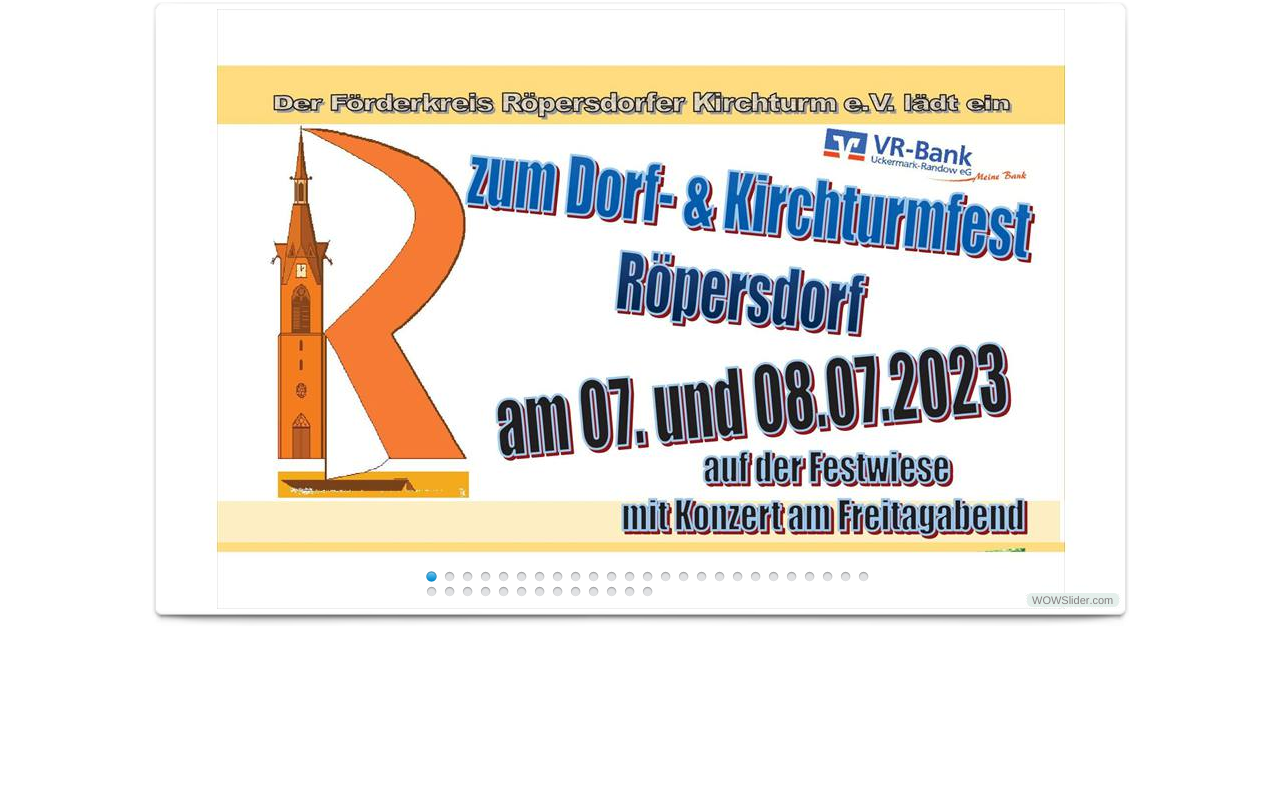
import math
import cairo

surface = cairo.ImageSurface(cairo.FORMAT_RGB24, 1281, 807)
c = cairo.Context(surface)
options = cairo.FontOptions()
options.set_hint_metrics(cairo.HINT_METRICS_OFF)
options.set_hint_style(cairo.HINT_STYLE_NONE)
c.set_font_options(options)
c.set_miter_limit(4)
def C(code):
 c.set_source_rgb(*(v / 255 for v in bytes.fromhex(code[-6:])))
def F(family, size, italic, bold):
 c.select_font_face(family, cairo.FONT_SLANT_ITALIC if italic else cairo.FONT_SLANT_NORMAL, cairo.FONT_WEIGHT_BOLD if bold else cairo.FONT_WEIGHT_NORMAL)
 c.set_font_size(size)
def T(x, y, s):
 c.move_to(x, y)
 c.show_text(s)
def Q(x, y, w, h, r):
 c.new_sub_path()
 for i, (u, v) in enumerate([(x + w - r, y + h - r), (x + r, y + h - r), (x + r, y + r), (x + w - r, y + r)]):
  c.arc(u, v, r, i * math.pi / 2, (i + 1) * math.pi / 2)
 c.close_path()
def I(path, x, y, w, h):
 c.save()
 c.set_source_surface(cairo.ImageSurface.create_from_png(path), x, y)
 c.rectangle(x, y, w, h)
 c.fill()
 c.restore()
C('ffffff')
c.paint()
I('1.png',152,2,977,624)
I('4.png',209,9,912,600)
I('2.png',426,571,11,11)
I('3.png',444,571,11,11)
I('3.png',462,571,11,11)
I('3.png',480,571,11,11)
I('3.png',498,571,11,11)
I('3.png',516,571,11,11)
I('3.png',534,571,11,11)
I('3.png',552,571,11,11)
I('3.png',570,571,11,11)
I('3.png',588,571,11,11)
I('3.png',606,571,11,11)
I('3.png',624,571,11,11)
I('3.png',642,571,11,11)
I('3.png',660,571,11,11)
I('3.png',678,571,11,11)
I('3.png',696,571,11,11)
I('3.png',714,571,11,11)
I('3.png',732,571,11,11)
I('3.png',750,571,11,11)
I('3.png',768,571,11,11)
I('3.png',786,571,11,11)
I('3.png',804,571,11,11)
I('3.png',822,571,11,11)
I('3.png',840,571,11,11)
I('3.png',858,571,11,11)
I('3.png',426,586,11,11)
I('3.png',444,586,11,11)
I('3.png',462,586,11,11)
I('3.png',480,586,11,11)
I('3.png',498,586,11,11)
I('3.png',516,586,11,11)
I('3.png',534,586,11,11)
I('3.png',552,586,11,11)
I('3.png',570,586,11,11)
I('3.png',588,586,11,11)
I('3.png',606,586,11,11)
I('3.png',624,586,11,11)
I('3.png',642,586,11,11)
C('e4efeb')
Q(1027,593,92,14,5)
c.fill()
F('Liberation Sans',11,0,0)
C('837f80')
T(1032,604,'WOWSlider.com')
surface.write_to_png('o.png')
